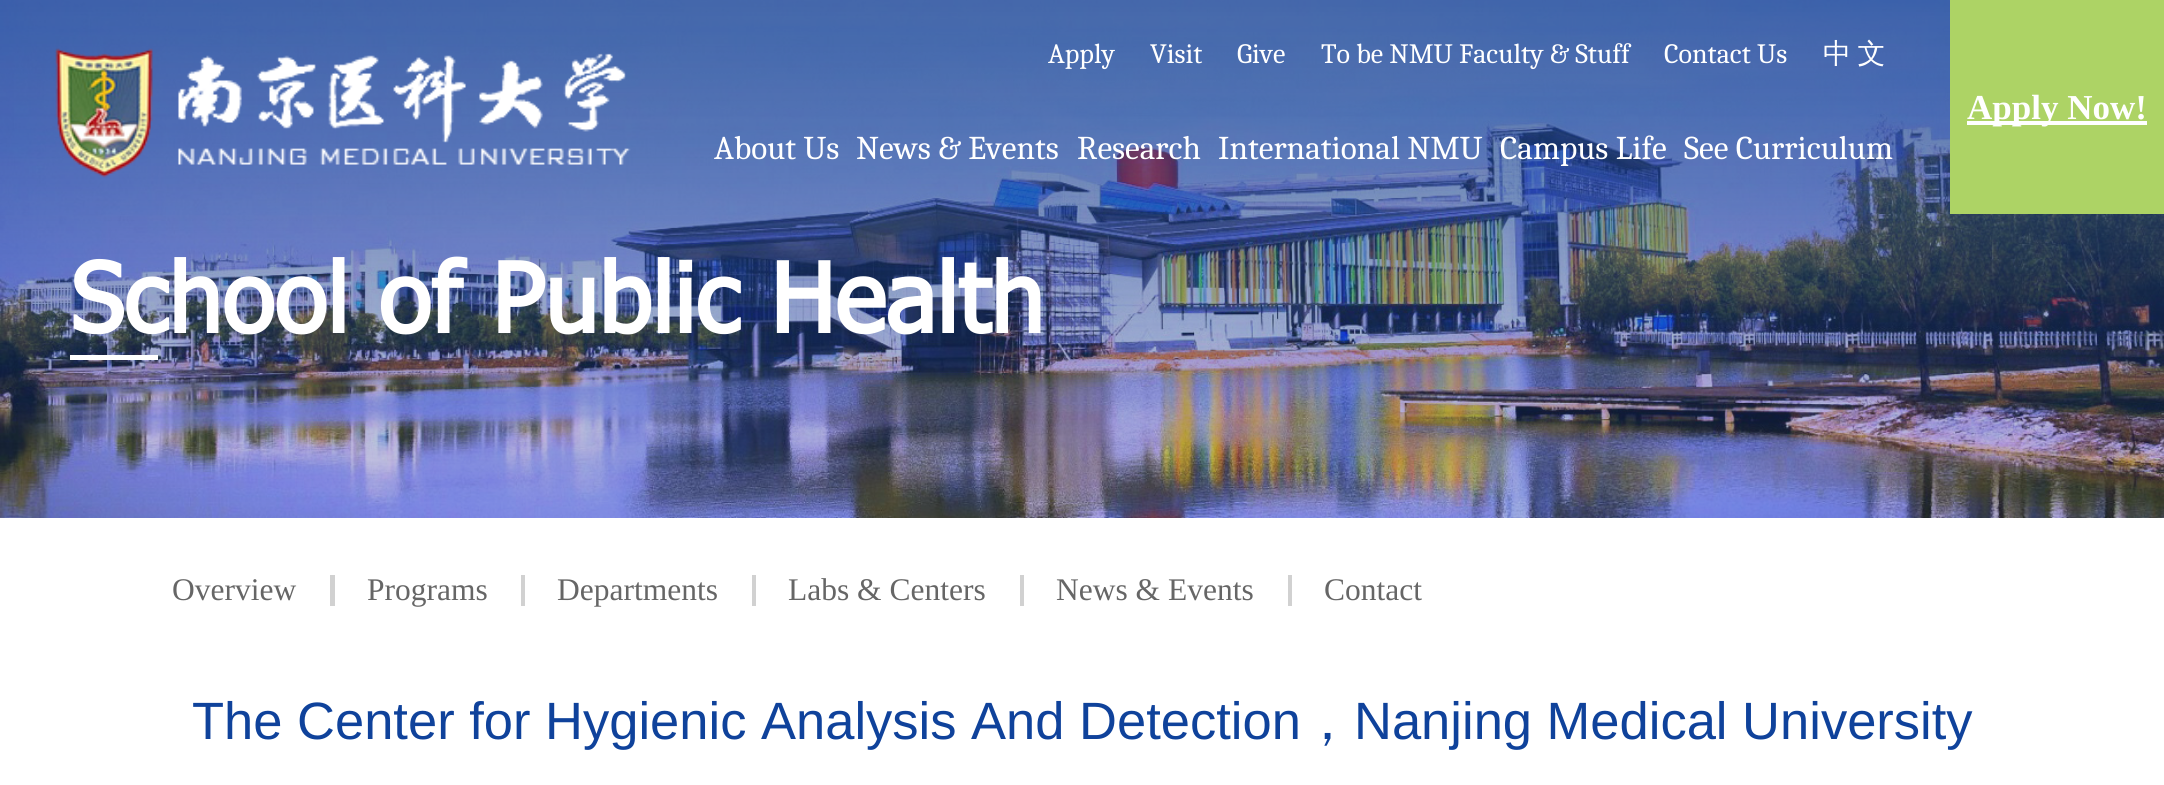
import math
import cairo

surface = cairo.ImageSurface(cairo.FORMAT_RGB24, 2164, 785)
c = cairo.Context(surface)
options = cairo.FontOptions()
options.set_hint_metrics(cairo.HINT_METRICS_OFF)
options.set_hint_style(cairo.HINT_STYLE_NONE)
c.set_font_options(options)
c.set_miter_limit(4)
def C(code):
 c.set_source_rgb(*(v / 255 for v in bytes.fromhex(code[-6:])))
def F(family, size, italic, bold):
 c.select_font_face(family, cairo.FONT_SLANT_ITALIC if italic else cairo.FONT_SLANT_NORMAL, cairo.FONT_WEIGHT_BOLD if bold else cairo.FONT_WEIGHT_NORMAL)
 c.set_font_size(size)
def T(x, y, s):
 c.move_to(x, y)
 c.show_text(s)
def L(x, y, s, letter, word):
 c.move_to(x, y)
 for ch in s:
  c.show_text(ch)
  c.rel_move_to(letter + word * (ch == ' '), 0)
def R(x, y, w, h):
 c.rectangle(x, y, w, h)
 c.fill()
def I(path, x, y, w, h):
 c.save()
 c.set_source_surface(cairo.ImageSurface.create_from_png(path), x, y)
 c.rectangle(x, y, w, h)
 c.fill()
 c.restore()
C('ffffff')
c.paint()
I('2.png',0,0,2164,518)
I('3.png',0,0,2164,518)
I('1.png',55,48,576,130)
F('Caladea',28,0,0)
C('ffffff')
T(1048,63,'Apply')
T(1150,63,'Visit')
T(1237,63,'Give')
T(1321,63,'To be NMU Faculty & Stuff')
T(1664,63,'Contact Us')
F('WenQuanYi Zen Hei Medium',28,0,0)
L(1823,63,'中 文',0,-2)
F('Caladea',33.25,0,0)
T(714,159,'About Us')
T(856,159,'News & Events')
T(1077,159,'Research')
T(1218,159,'International NMU')
T(1500,159,'Campus Life')
T(1684,159,'See Curriculum')
C('add365')
R(1950,0,214,214)
C('ffffff')
R(1967,121,180,4)
F('Liberation Serif',35,0,1)
T(1967,119,'Apply Now!')
F('Tahoma',96.25,0,1)
T(70,333,'School of Public Health')
R(70,355,88,5)
F('Liberation Serif',31.5,0,0)
C('666666')
T(172,600,'Overview')
C('d1d1d1')
R(330,575,5,31)
C('666666')
T(367,600,'Programs')
C('d1d1d1')
R(521,575,4,31)
C('666666')
T(557,600,'Departments')
C('d1d1d1')
R(752,575,4,31)
C('666666')
T(788,600,'Labs & Centers')
C('d1d1d1')
R(1020,575,4,31)
C('666666')
T(1056,600,'News & Events')
C('d1d1d1')
R(1288,575,4,31)
C('666666')
T(1324,600,'Contact')
F('Liberation Sans',52.5,0,0)
C('0f429b')
T(192,739,'The Center for Hygienic Analysis And Detection')
F('WenQuanYi Zen Hei Medium',52.5,0,0)
T(1301,739,'，')
F('Liberation Sans',52.5,0,0)
T(1354,739,'Nanjing Medical University')
surface.write_to_png('o.png')
